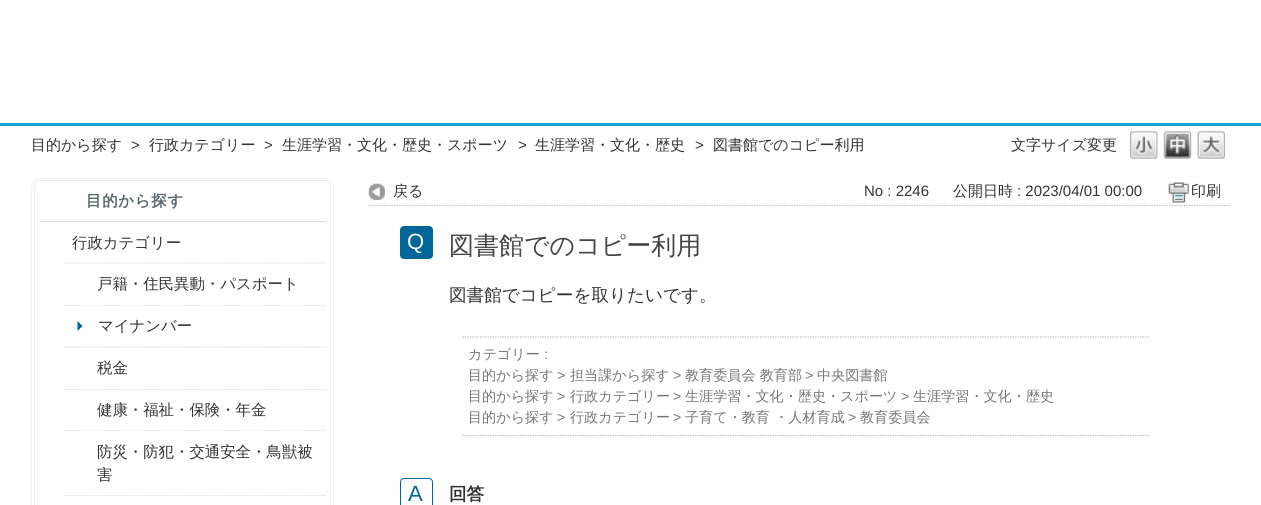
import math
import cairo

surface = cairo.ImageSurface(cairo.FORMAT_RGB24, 1261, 505)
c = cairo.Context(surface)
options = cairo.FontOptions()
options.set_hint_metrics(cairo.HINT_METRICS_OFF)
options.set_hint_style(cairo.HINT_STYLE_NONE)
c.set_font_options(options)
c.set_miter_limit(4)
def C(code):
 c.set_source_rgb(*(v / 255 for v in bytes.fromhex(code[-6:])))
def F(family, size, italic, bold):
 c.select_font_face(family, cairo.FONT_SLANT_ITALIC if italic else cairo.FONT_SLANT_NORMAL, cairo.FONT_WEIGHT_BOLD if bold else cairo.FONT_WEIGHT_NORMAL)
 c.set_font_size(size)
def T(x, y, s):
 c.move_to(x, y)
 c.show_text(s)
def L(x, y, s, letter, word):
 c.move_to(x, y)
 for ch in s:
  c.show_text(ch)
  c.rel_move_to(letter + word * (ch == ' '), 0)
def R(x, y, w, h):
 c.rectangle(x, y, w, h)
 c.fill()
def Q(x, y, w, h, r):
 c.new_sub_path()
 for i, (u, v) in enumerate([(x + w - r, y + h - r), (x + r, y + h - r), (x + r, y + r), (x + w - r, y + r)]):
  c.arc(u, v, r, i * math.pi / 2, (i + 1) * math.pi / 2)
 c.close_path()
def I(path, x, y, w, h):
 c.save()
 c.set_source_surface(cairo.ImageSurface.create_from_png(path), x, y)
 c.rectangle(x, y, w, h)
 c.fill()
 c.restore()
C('ffffff')
c.paint()
C('18a3dc')
R(0,123,1261,3)
F('WenQuanYi Zen Hei Medium',15,0,0)
C('333333')
T(31,150,'目的から探す')
F('Liberation Sans',15,0,0)
T(131,150,'>')
F('WenQuanYi Zen Hei Medium',15,0,0)
T(149,150,'行政カテゴリー')
F('Liberation Sans',15,0,0)
T(264,150,'>')
F('WenQuanYi Zen Hei Medium',15,0,0)
T(282,150,'生涯学習・文化・歴史・スポーツ')
F('Liberation Sans',15,0,0)
T(518,150,'>')
F('WenQuanYi Zen Hei Medium',15,0,0)
T(535,150,'生涯学習・文化・歴史')
F('Liberation Sans',15,0,0)
T(695,150,'>')
F('WenQuanYi Zen Hei Medium',15,0,0)
T(713,150,'図書館でのコピー利用')
T(1011,150,'文字サイズ変更')
I('1.png',1130,131,28,28)
I('2.png',1163,131,29,28)
I('3.png',1197,131,28,28)
Q(31.5,178.5,302,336,8.5)
C('efefef')
c.set_line_width(1)
c.stroke()
Q(34.5,180.5,296,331,5.5)
c.stroke()
F('WenQuanYi Zen Hei',15.4,0,1)
C('58676b')
L(86,206,'目的から探す',.75,0)
C('dddddd')
R(39,221,287,1)
F('WenQuanYi Zen Hei Medium',15.4,0,0)
C('333333')
T(72,248,'行政カテゴリー')
c.new_path()
c.move_to(64,263)
c.line_to(326,263)
C('dddddd')
c.set_line_width(1.2)
c.set_dash([1.25,1.25])
c.stroke()
C('333333')
T(97,289,'戸籍・住民異動・パスポート')
c.new_path()
c.move_to(64,305.5)
c.line_to(326,305.5)
C('dddddd')
c.stroke()
C('006699')
c.new_path()
c.move_to(77.5,331)
c.line_to(77.5,321)
c.line_to(82.5,326)
c.close_path()
c.fill()
C('333333')
T(98,331,'マイナンバー')
c.new_path()
c.move_to(64,347)
c.line_to(326,347)
C('dddddd')
c.stroke()
C('333333')
T(97,373,'税金')
c.new_path()
c.move_to(64,389.5)
c.line_to(326,389.5)
C('dddddd')
c.stroke()
C('333333')
T(97,415,'健康・福祉・保険・年金')
c.new_path()
c.move_to(64,430.5)
c.line_to(326,430.5)
C('dddddd')
c.stroke()
C('333333')
T(97,457,'防災・防犯・交通安全・鳥獣被')
T(97,480,'害')
c.new_path()
c.move_to(64,495.5)
c.line_to(326,495.5)
C('dddddd')
c.stroke()
c.new_path()
c.move_to(369,205.5)
c.line_to(1231,205.5)
C('bbbbbb')
c.stroke()
I('4.png',368,183,17,17)
F('WenQuanYi Zen Hei Medium',15,0,0)
C('333333')
T(393,196,'戻る')
F('Liberation Sans',15,0,0)
T(864,196,'No : 2246')
F('WenQuanYi Zen Hei Medium',15,0,0)
T(953,196,'公開日時')
F('Liberation Sans',15,0,0)
T(1017,196,': 2023/04/01 00:00')
I('5.png',1168,182,21,21)
F('WenQuanYi Zen Hei Medium',15,0,0)
T(1191,196,'印刷')
C('006699')
Q(400,226,33,33,4)
c.fill()
F('Liberation Sans',22,0,0)
C('ffffff')
T(407,249,'Q')
F('WenQuanYi Zen Hei Medium',25,0,0)
C('444444')
T(449,254,'図書館でのコピー利用')
F('WenQuanYi Zen Hei Medium',17.6,0,0)
C('333333')
T(449,301,'図書館でコピーを取りたいです。')
c.new_path()
c.move_to(462.5,337)
c.line_to(1150,337)
C('bbbbbb')
c.stroke()
c.new_path()
c.move_to(462.5,435.5)
c.line_to(1150,435.5)
c.stroke()
F('WenQuanYi Zen Hei Medium',14.1,0,0)
C('767676')
T(468,359,'カテゴリー')
F('Liberation Sans',14.1,0,0)
T(544,359,':')
F('WenQuanYi Zen Hei Medium',14.1,0,0)
T(468,380,'目的から探す')
F('Liberation Sans',14.1,0,0)
T(557,380,'>')
F('WenQuanYi Zen Hei Medium',14.1,0,0)
T(570,380,'担当課から探す')
F('Liberation Sans',14.1,0,0)
T(673,380,'>')
F('WenQuanYi Zen Hei Medium',14.1,0,0)
T(685,380,'教育委員会 教育部')
F('Liberation Sans',14.1,0,0)
T(805,380,'>')
F('WenQuanYi Zen Hei Medium',14.1,0,0)
T(817,380,'中央図書館')
T(468,401,'目的から探す')
F('Liberation Sans',14.1,0,0)
T(557,401,'>')
F('WenQuanYi Zen Hei Medium',14.1,0,0)
T(570,401,'行政カテゴリー')
F('Liberation Sans',14.1,0,0)
T(673,401,'>')
F('WenQuanYi Zen Hei Medium',14.1,0,0)
T(685,401,'生涯学習・文化・歴史・スポーツ')
F('Liberation Sans',14.1,0,0)
T(901,401,'>')
F('WenQuanYi Zen Hei Medium',14.1,0,0)
T(913,401,'生涯学習・文化・歴史')
T(468,422,'目的から探す')
F('Liberation Sans',14.1,0,0)
T(557,422,'>')
F('WenQuanYi Zen Hei Medium',14.1,0,0)
T(570,422,'行政カテゴリー')
F('Liberation Sans',14.1,0,0)
T(673,422,'>')
F('WenQuanYi Zen Hei Medium',14.1,0,0)
T(685,422,'子育て・教育 ・人材育成')
F('Liberation Sans',14.1,0,0)
T(848,422,'>')
F('WenQuanYi Zen Hei Medium',14.1,0,0)
T(860,422,'教育委員会')
Q(400.5,478.5,32,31,3.5)
C('006699')
c.set_line_width(1)
c.set_dash([])
c.stroke()
F('Liberation Sans',22,0,0)
T(408,501,'A')
F('WenQuanYi Zen Hei',17.6,0,1)
C('333333')
T(449,500,'回答')
surface.write_to_png('o.png')
